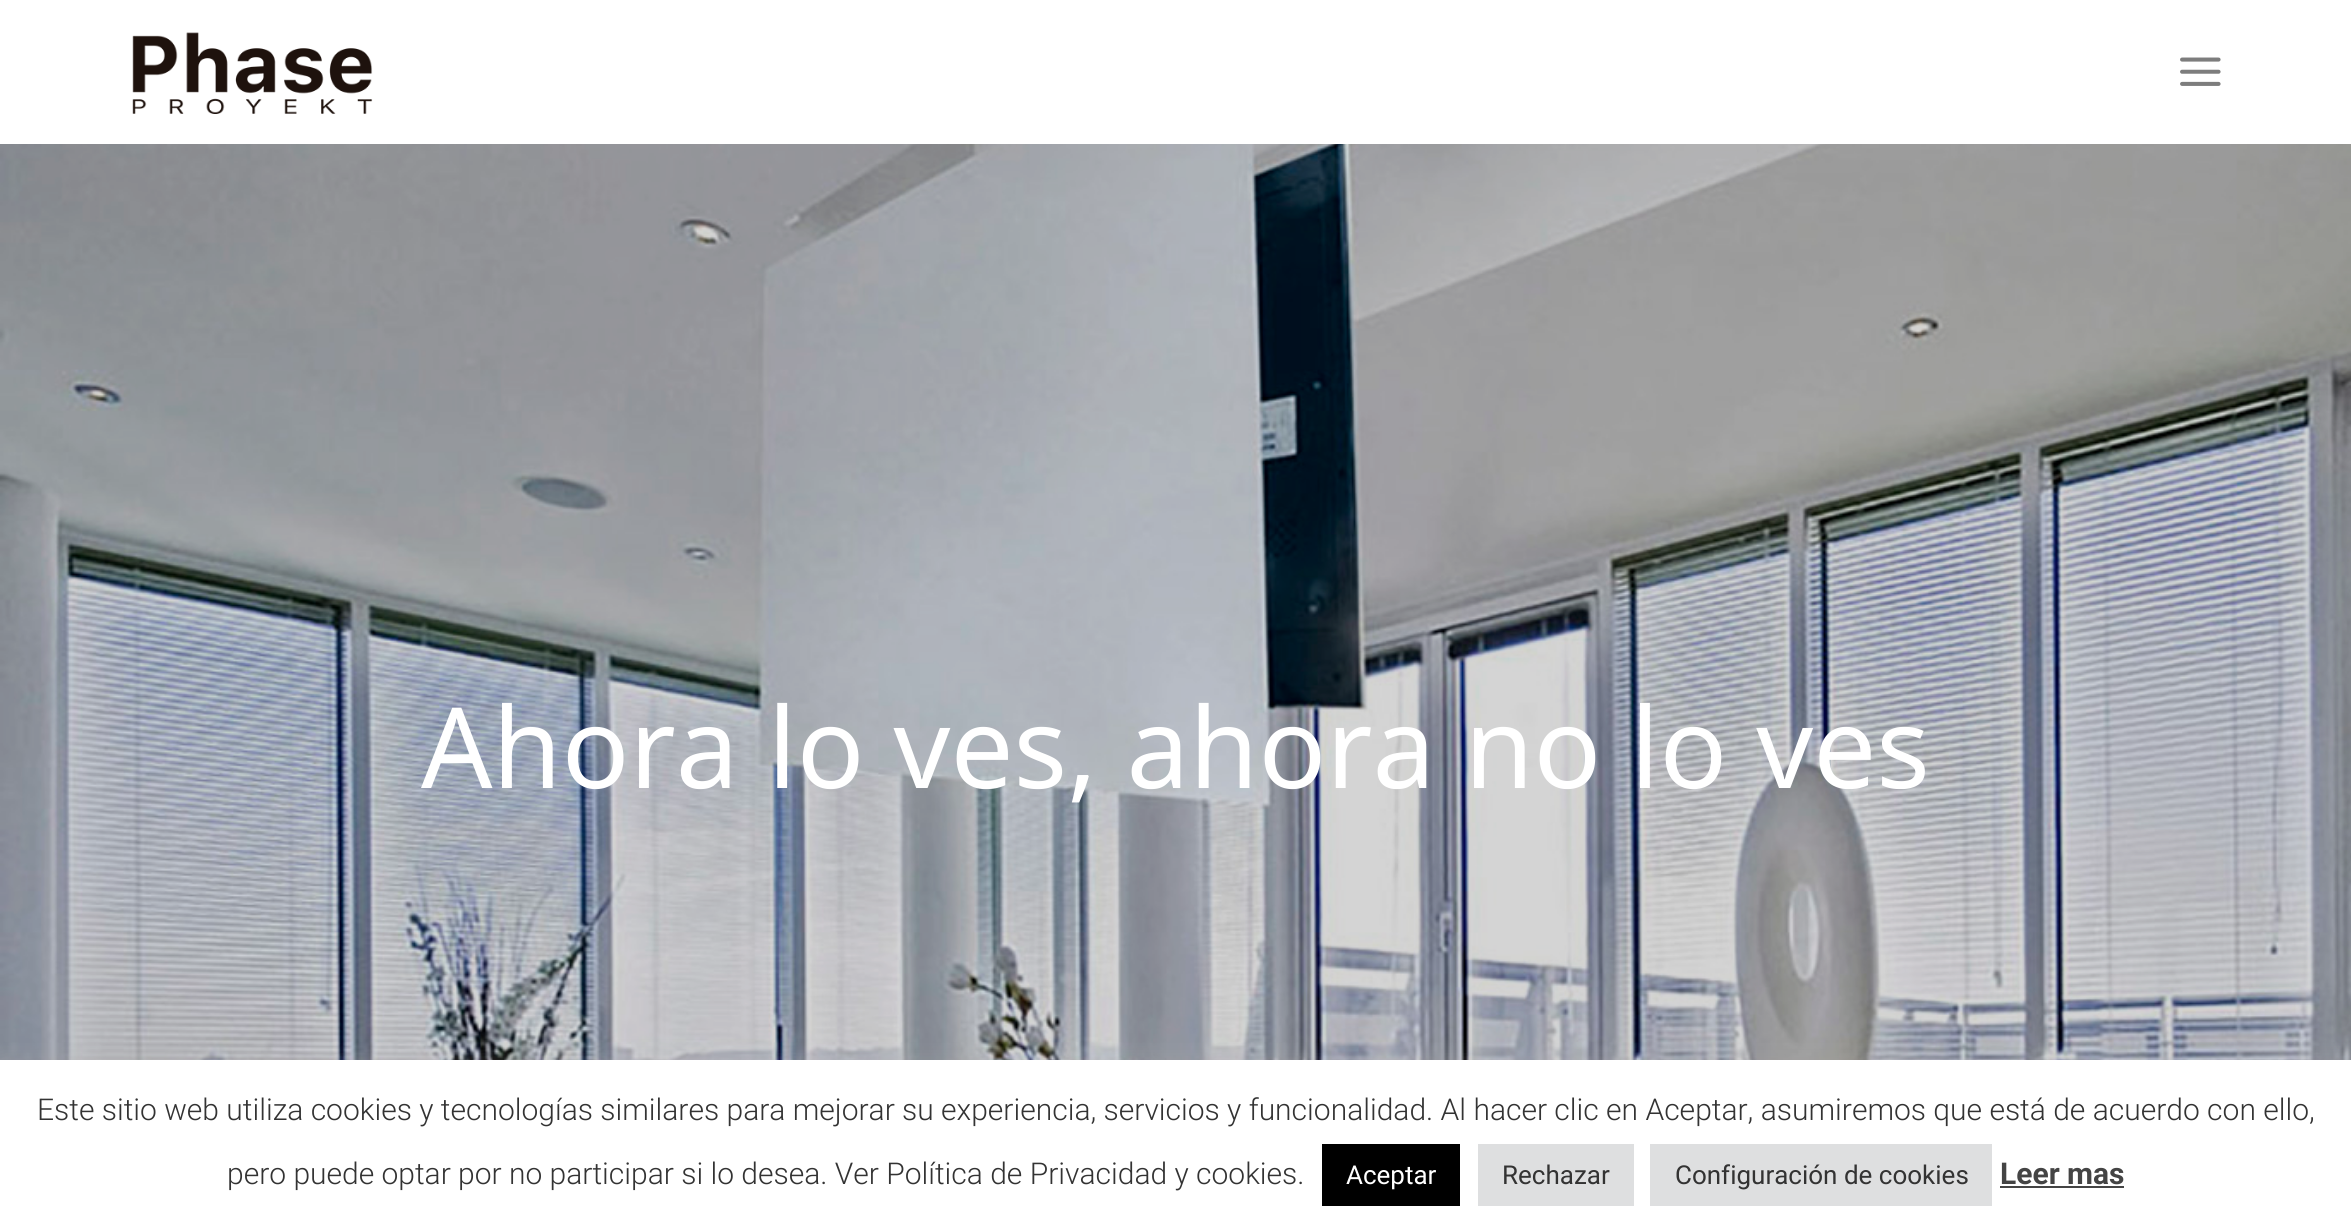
import math
import cairo

surface = cairo.ImageSurface(cairo.FORMAT_RGB24, 2351, 1229)
c = cairo.Context(surface)
options = cairo.FontOptions()
options.set_hint_metrics(cairo.HINT_METRICS_OFF)
options.set_hint_style(cairo.HINT_STYLE_NONE)
c.set_font_options(options)
c.set_miter_limit(4)
def C(code):
 c.set_source_rgb(*(v / 255 for v in bytes.fromhex(code[-6:])))
def F(family, size, italic, bold):
 c.select_font_face(family, cairo.FONT_SLANT_ITALIC if italic else cairo.FONT_SLANT_NORMAL, cairo.FONT_WEIGHT_BOLD if bold else cairo.FONT_WEIGHT_NORMAL)
 c.set_font_size(size)
def T(x, y, s):
 c.move_to(x, y)
 c.show_text(s)
def R(x, y, w, h):
 c.rectangle(x, y, w, h)
 c.fill()
def Q(x, y, w, h, r):
 c.new_sub_path()
 for i, (u, v) in enumerate([(x + w - r, y + h - r), (x + r, y + h - r), (x + r, y + r), (x + w - r, y + r)]):
  c.arc(u, v, r, i * math.pi / 2, (i + 1) * math.pi / 2)
 c.close_path()
def S(x, y, w, h, r, blur, alpha):
 c.push_group_with_content(cairo.CONTENT_ALPHA)
 c.set_operator(cairo.OPERATOR_SOURCE)
 for i in range(15, -16, -2):
  e = blur * i / 6
  if min(w, h) + 2 * e > 0:
   c.set_source_rgba(0, 0, 0, alpha * math.erfc((i - 1) / 8.5) / 2)
   Q(x - e, y - e, w + 2 * e, h + 2 * e, max(0, min(r + e + blur * .6, min(w, h) / 2 + e)))
   c.fill()
 c.mask(c.pop_group())
def I(path, x, y, w, h):
 c.save()
 c.set_source_surface(cairo.ImageSurface.create_from_png(path), x, y)
 c.rectangle(x, y, w, h)
 c.fill()
 c.restore()
C('ffffff')
c.paint()
I('1.png',132,32,241,82)
I('2.png',2180,57,41,29)
I('3.png',0,144,2351,916)
F('Noto Sans',112,0,0)
C('ffffff')
T(421,788,'Ahora lo ves, ahora no lo ves')
C('acabab')
S(0,1058,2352,170,0,10,.3)
C('ffffff')
R(0,1060,2351,169)
F('Roboto Light',30,0,0)
C('333333')
T(37,1120,'Este sitio web utiliza cookies y tecnologías similares para mejorar su experiencia, servicios y funcionalidad. Al hacer clic en Aceptar, asumiremos que está de acuerdo con ello,')
T(227,1184,'pero puede optar por no participar si lo desea. Ver Política de Privacidad y cookies.')
C('000000')
R(1322,1144,138,62)
F('Roboto',26,0,0)
C('ffffff')
T(1346,1184,'Aceptar')
C('dedfe0')
R(1478,1144,156,62)
C('333333')
T(1502,1184,'Rechazar')
C('dedfe0')
R(1650,1144,342,62)
C('333333')
T(1675,1184,'Configuración de cookies')
F('Roboto',30,0,1)
C('444444')
T(2000,1184,'Leer mas')
R(2000,1186,124,2)
surface.write_to_png('o.png')
